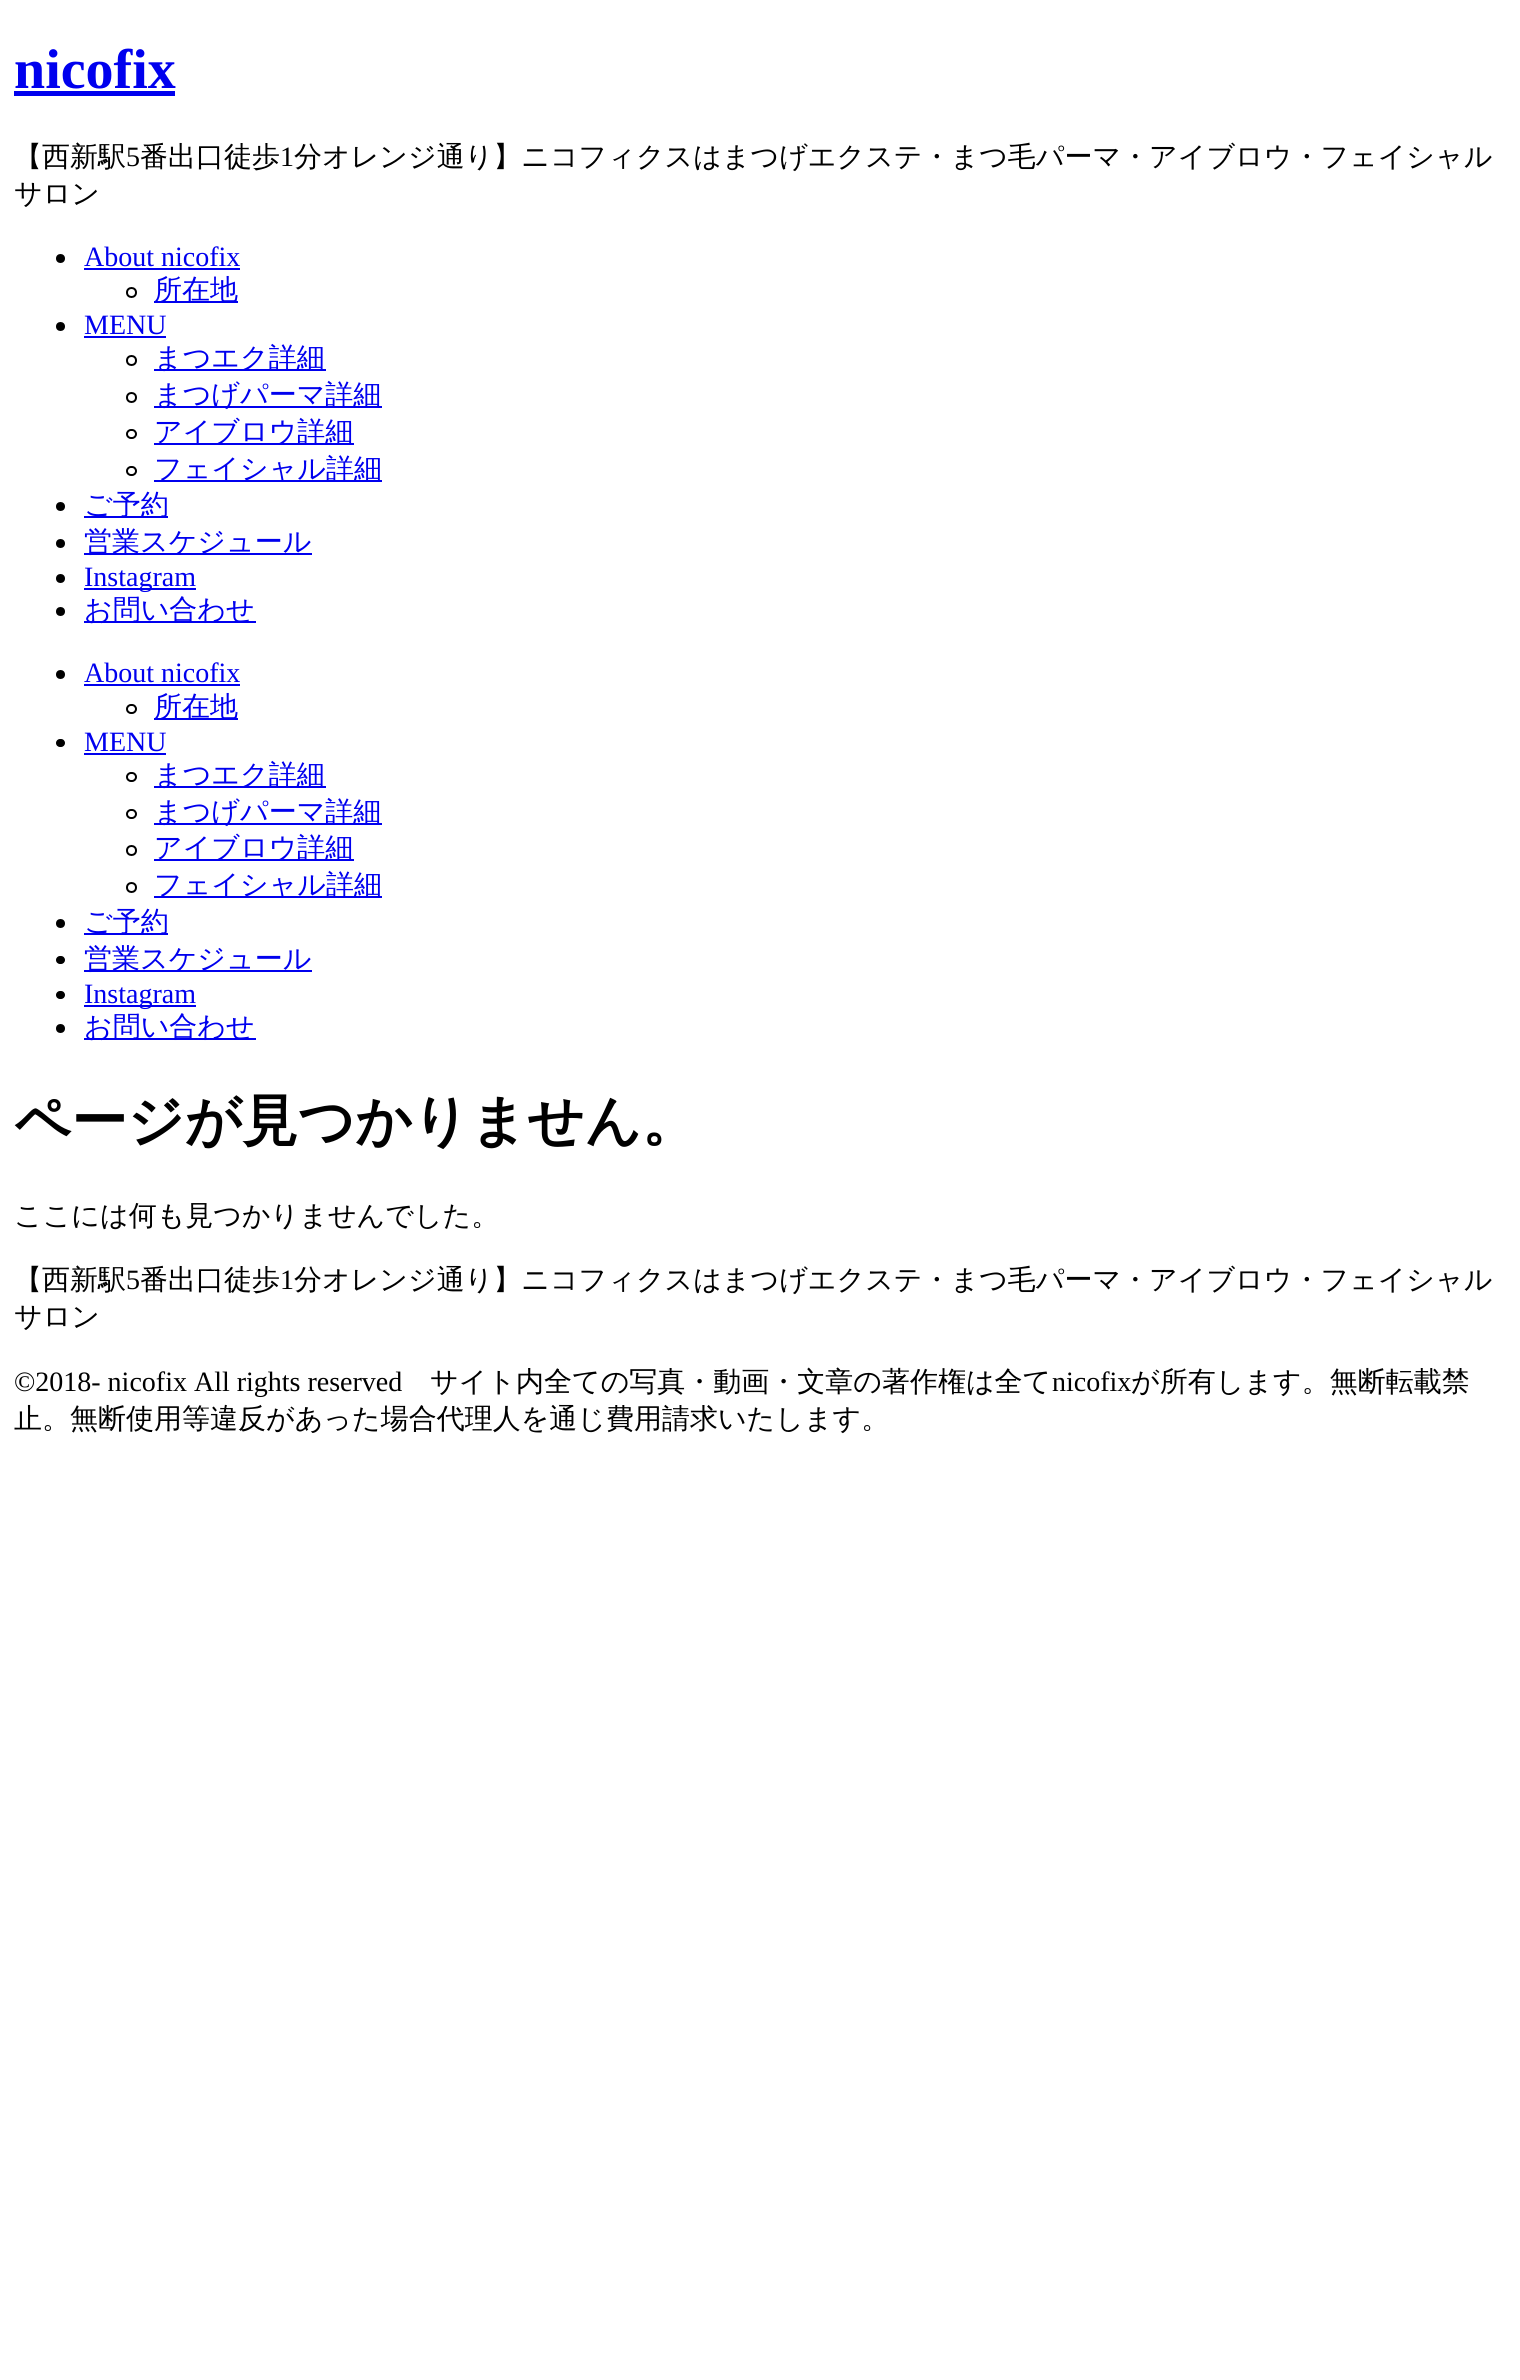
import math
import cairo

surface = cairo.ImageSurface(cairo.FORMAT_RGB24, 1520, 2380)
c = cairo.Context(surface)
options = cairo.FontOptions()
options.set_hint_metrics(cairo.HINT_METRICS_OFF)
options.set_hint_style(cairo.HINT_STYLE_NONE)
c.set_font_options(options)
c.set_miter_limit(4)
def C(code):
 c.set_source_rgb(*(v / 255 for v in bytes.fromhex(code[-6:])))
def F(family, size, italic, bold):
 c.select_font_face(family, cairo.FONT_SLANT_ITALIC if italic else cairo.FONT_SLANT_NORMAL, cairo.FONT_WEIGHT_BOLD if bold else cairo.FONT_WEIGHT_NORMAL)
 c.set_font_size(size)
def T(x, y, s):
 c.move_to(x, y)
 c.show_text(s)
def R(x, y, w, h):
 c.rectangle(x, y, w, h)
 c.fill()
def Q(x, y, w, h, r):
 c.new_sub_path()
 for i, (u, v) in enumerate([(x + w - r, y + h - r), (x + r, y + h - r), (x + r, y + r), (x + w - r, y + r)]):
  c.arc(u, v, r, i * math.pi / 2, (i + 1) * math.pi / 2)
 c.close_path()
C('ffffff')
c.paint()
F('Liberation Serif',56,0,1)
C('0000ee')
T(14,88,'nicofix')
R(14,91,161,5)
F('WenQuanYi Zen Hei Medium',28,0,0)
C('000000')
T(14,166,'【西新駅')
F('Liberation Serif',28,0,0)
T(126,166,'5')
F('WenQuanYi Zen Hei Medium',28,0,0)
T(140,166,'番出口徒歩')
F('Liberation Serif',28,0,0)
T(280,166,'1')
F('WenQuanYi Zen Hei Medium',28,0,0)
T(294,166,'分オレンジ通り】ニコフィクスはまつげエクステ・まつ毛パーマ・アイブロウ・フェイシャル')
T(14,203,'サロン')
c.new_path()
c.arc(60.5,258.5,4.5,0,2 * math.pi)
c.fill()
F('Liberation Serif',28,0,0)
C('0000ee')
T(84,266,'About nicofix')
R(84,268,156,2)
c.new_path()
c.arc(131.5,292.5,4.5,0,2 * math.pi)
C('000000')
c.stroke()
C('0000ee')
R(154,301,84,2)
F('WenQuanYi Zen Hei Medium',28,0,0)
T(154,299,'所在地')
C('000000')
c.new_path()
c.arc(60.5,326.5,4.5,0,2 * math.pi)
c.fill()
F('Liberation Serif',28,0,0)
C('0000ee')
T(84,334,'MENU')
R(84,336,82,2)
c.new_path()
c.arc(131.5,360.5,4.5,0,2 * math.pi)
C('000000')
c.stroke()
C('0000ee')
R(154,369,172,2)
F('WenQuanYi Zen Hei Medium',28,0,0)
T(154,367,'まつエク詳細')
c.new_path()
c.arc(131.5,397.5,4.5,0,2 * math.pi)
C('000000')
c.stroke()
C('0000ee')
R(154,406,228,2)
T(154,404,'まつげパーマ詳細')
Q(127,430,9,8,4)
C('000000')
c.stroke()
C('0000ee')
R(154,443,200,2)
T(154,441,'アイブロウ詳細')
Q(127,467,9,8,4)
C('000000')
c.stroke()
C('0000ee')
R(154,480,228,2)
T(154,478,'フェイシャル詳細')
C('000000')
c.new_path()
c.arc(60.5,506.5,4.5,0,2 * math.pi)
c.fill()
C('0000ee')
R(84,516,84,2)
T(84,514,'ご予約')
C('000000')
c.new_path()
c.arc(60.5,543.5,4.5,0,2 * math.pi)
c.fill()
C('0000ee')
R(84,553,228,2)
T(84,551,'営業スケジュール')
C('000000')
c.new_path()
c.arc(60.5,578.5,4.5,0,2 * math.pi)
c.fill()
C('0000ee')
R(84,588,112,2)
F('Liberation Serif',28,0,0)
T(84,586,'Instagram')
C('000000')
c.new_path()
c.arc(60.5,611.5,4.5,0,2 * math.pi)
c.fill()
C('0000ee')
R(84,621,172,2)
F('WenQuanYi Zen Hei Medium',28,0,0)
T(84,619,'お問い合わせ')
C('000000')
c.new_path()
c.arc(60.5,674.5,4.5,0,2 * math.pi)
c.fill()
F('Liberation Serif',28,0,0)
C('0000ee')
T(84,682,'About nicofix')
R(84,684,156,2)
Q(127,705,9,8,4)
C('000000')
c.stroke()
C('0000ee')
R(154,718,84,2)
F('WenQuanYi Zen Hei Medium',28,0,0)
T(154,716,'所在地')
C('000000')
Q(56,739,9,8,4)
c.fill()
F('Liberation Serif',28,0,0)
C('0000ee')
T(84,751,'MENU')
R(84,753,82,2)
Q(127,773,9,8,4)
C('000000')
c.stroke()
C('0000ee')
R(154,786,172,2)
F('WenQuanYi Zen Hei Medium',28,0,0)
T(154,784,'まつエク詳細')
Q(127,810,9,8,4)
C('000000')
c.stroke()
C('0000ee')
R(154,823,228,2)
T(154,821,'まつげパーマ詳細')
c.new_path()
c.arc(131.5,850.5,4.5,0,2 * math.pi)
C('000000')
c.stroke()
C('0000ee')
R(154,859,200,2)
T(154,857,'アイブロウ詳細')
c.new_path()
c.arc(131.5,887.5,4.5,0,2 * math.pi)
C('000000')
c.stroke()
C('0000ee')
R(154,896,228,2)
T(154,894,'フェイシャル詳細')
C('000000')
c.new_path()
c.arc(60.5,923.5,4.5,0,2 * math.pi)
c.fill()
C('0000ee')
R(84,933,84,2)
T(84,931,'ご予約')
C('000000')
Q(56,956,9,8,4)
c.fill()
C('0000ee')
R(84,970,228,2)
T(84,968,'営業スケジュール')
C('000000')
Q(56,991,9,8,4)
c.fill()
C('0000ee')
R(84,1005,112,2)
F('Liberation Serif',28,0,0)
T(84,1003,'Instagram')
C('000000')
c.new_path()
c.arc(60.5,1028.5,4.5,0,2 * math.pi)
c.fill()
C('0000ee')
R(84,1038,172,2)
F('WenQuanYi Zen Hei Medium',28,0,0)
T(84,1036,'お問い合わせ')
F('WenQuanYi Zen Hei',56,0,1)
C('000000')
T(14,1140,'ページが見つかりません。')
F('WenQuanYi Zen Hei Medium',28,0,0)
T(14,1225,'ここには何も見つかりませんでした。')
T(14,1289,'【西新駅')
F('Liberation Serif',28,0,0)
T(126,1289,'5')
F('WenQuanYi Zen Hei Medium',28,0,0)
T(140,1289,'番出口徒歩')
F('Liberation Serif',28,0,0)
T(280,1289,'1')
F('WenQuanYi Zen Hei Medium',28,0,0)
T(294,1289,'分オレンジ通り】ニコフィクスはまつげエクステ・まつ毛パーマ・アイブロウ・フェイシャル')
T(14,1326,'サロン')
F('Liberation Serif',28,0,0)
T(14,1391,'©2018- nicofix All rights reserved')
F('WenQuanYi Zen Hei Medium',28,0,0)
T(430,1391,'サイト内全ての写真・動画・文章の著作権は全て')
F('Liberation Serif',28,0,0)
T(1052,1391,'nicofix')
F('WenQuanYi Zen Hei Medium',28,0,0)
T(1131,1391,'が所有します。無断転載禁')
T(14,1428,'止。無断使用等違反があった場合代理人を通じ費用請求いたします。')
surface.write_to_png('o.png')
